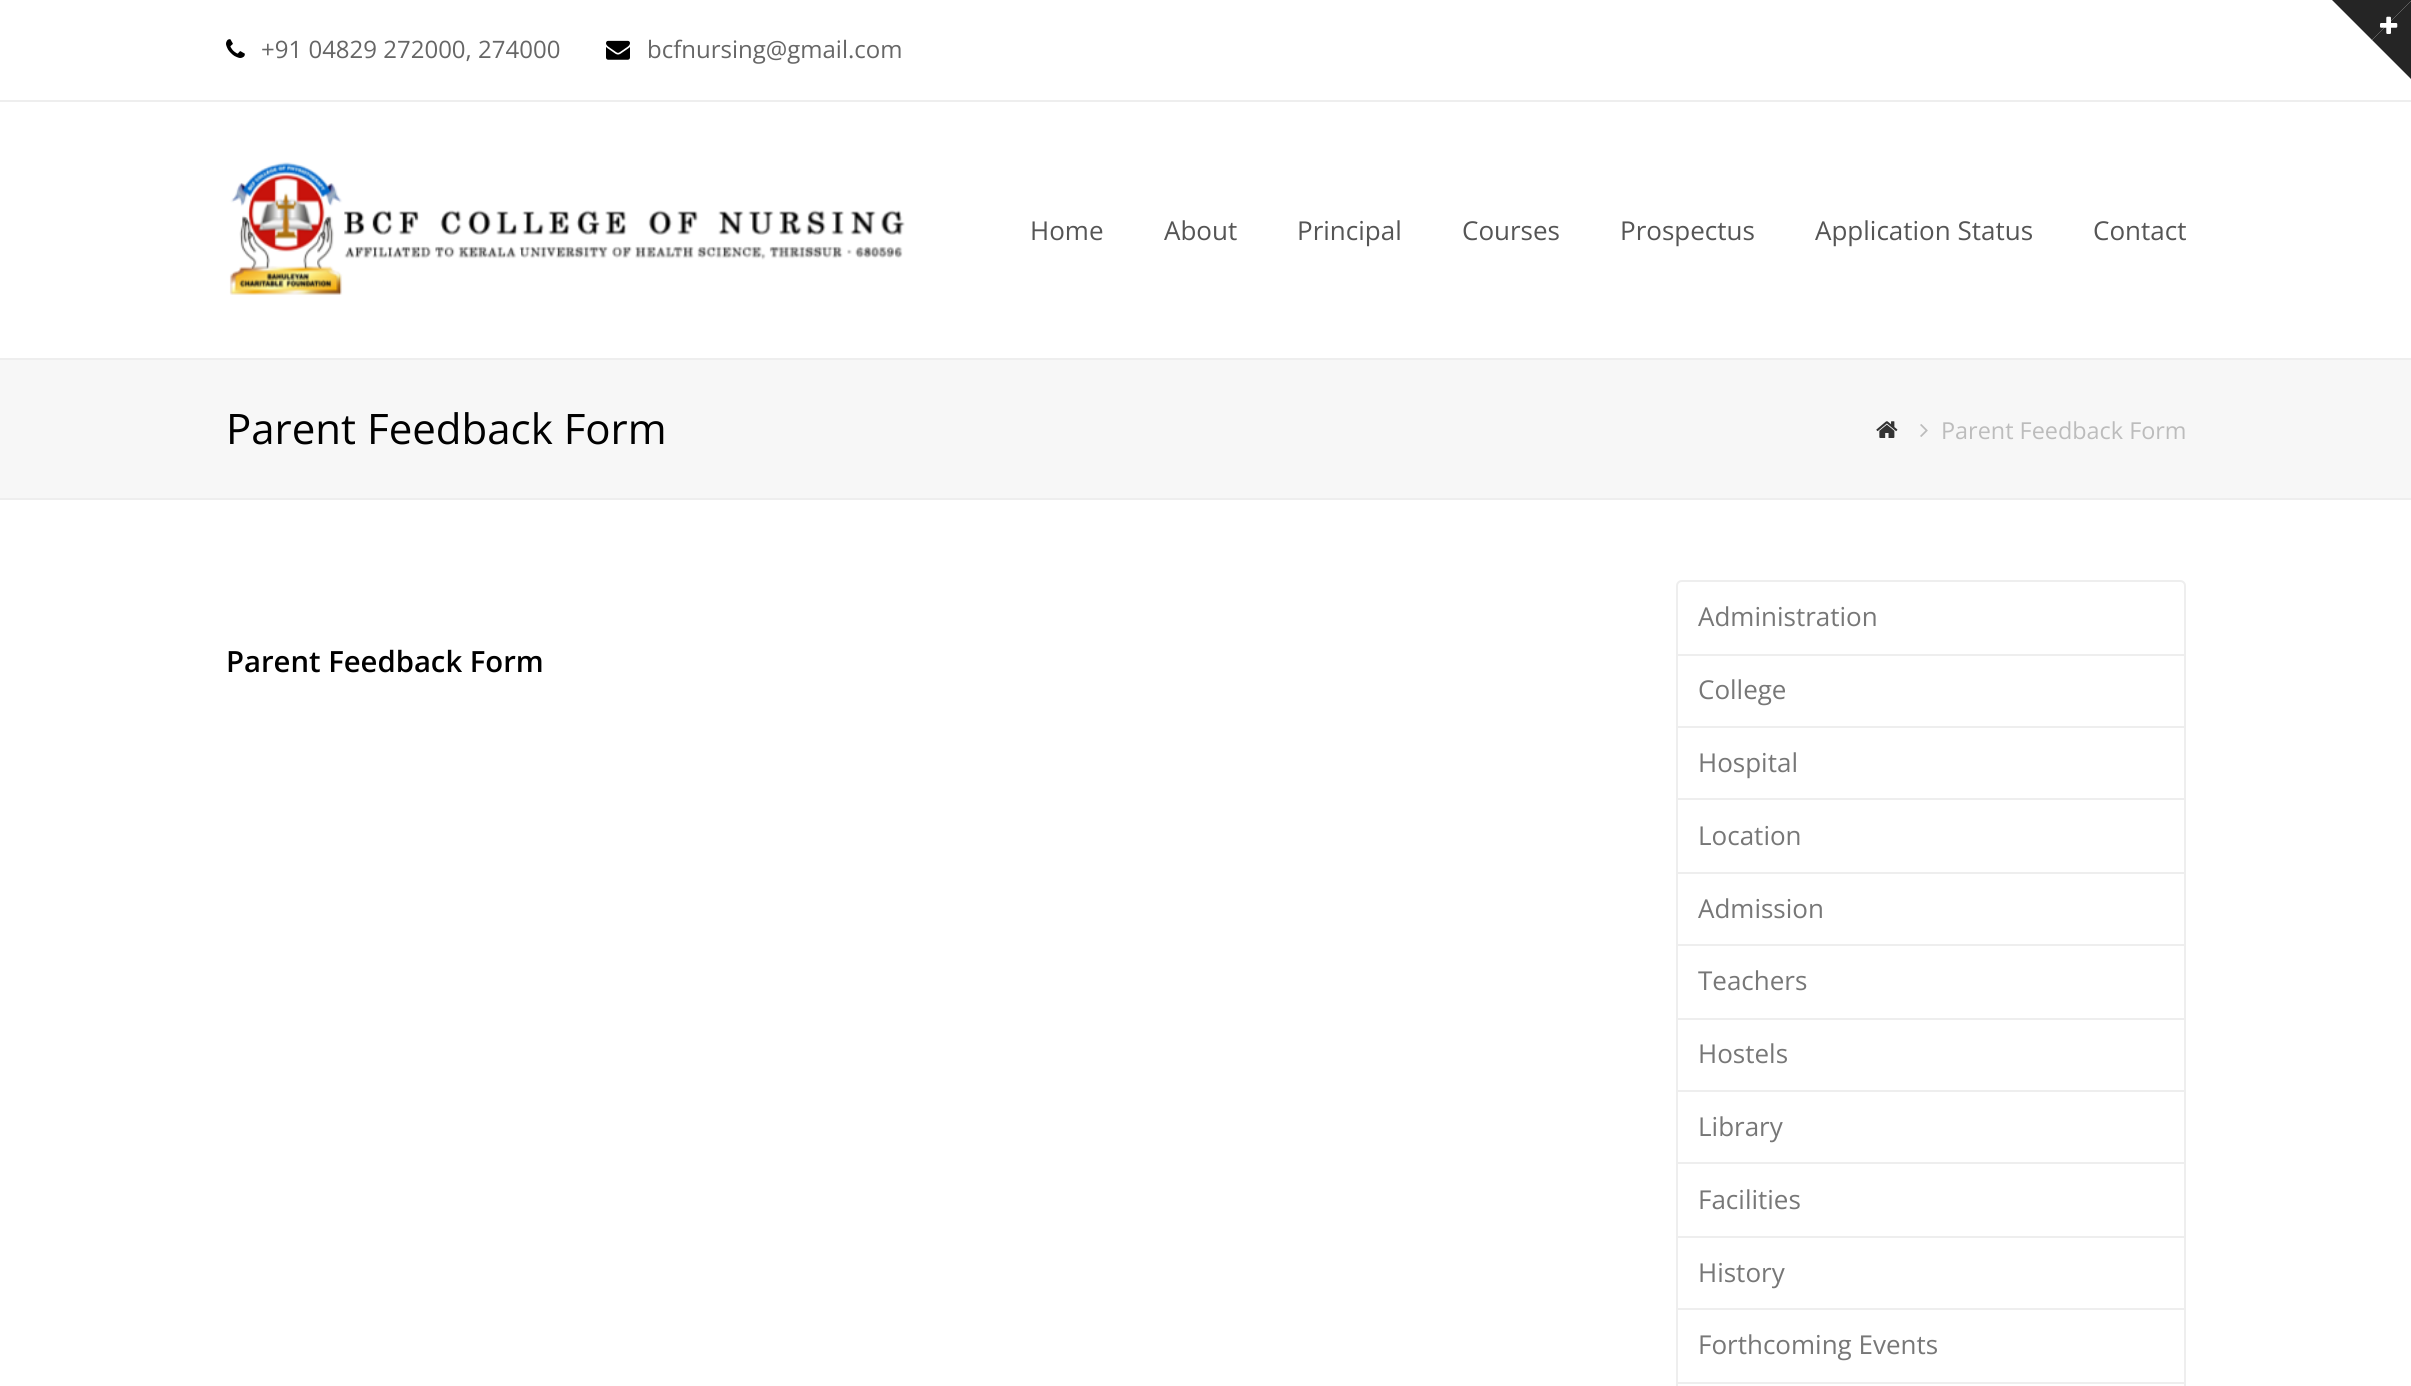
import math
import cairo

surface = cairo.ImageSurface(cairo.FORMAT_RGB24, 2411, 1386)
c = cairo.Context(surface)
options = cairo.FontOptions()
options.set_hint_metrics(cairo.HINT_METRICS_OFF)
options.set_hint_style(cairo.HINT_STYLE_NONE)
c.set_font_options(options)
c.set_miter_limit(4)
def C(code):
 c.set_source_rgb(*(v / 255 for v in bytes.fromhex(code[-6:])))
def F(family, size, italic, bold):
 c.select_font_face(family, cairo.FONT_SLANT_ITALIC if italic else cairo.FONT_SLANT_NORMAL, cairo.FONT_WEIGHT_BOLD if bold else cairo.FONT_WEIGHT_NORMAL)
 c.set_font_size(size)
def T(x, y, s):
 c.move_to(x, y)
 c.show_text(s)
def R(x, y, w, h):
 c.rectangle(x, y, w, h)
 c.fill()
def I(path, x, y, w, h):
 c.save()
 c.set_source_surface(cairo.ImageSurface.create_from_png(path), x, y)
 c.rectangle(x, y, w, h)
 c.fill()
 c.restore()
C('ffffff')
c.paint()
C('eeeeee')
R(0,100,2411,2)
I('1.png',226,39,19,19)
F('Open Sans',24,0,0)
C('666666')
T(261,58,'+91 04829 272000, 274000')
I('2.png',606,40,24,20)
T(647,58,'bcfnursing@gmail.com')
I('3.png',229,162,676,133)
F('Open Sans',26,0,0)
C('555555')
T(1030,240,'Home')
T(1164,240,'About')
T(1297,240,'Principal')
T(1462,240,'Courses')
T(1620,240,'Prospectus')
T(1815,240,'Application Status')
T(2093,240,'Contact')
C('f7f7f7')
R(0,360,2411,138)
C('eeeeee')
R(0,358,2411,2)
R(0,498,2411,2)
F('Open Sans',42,0,0)
C('000000')
T(226,444,'Parent Feedback Form')
I('4.png',1876,421,22,17)
I('5.png',1920,424,8,13)
F('Open Sans',23.4,0,0)
C('bcbcbc')
T(1941,439,'Parent Feedback Form')
F('Open Sans SemiBold',29.25,0,0)
C('000000')
T(226,672,'Parent Feedback Form')
c.new_path()
c.move_to(1682,581)
c.line_to(2180,581)
c.curve_to(2183,581,2185,583,2185,586)
c.line_to(2185,655)
c.line_to(1677,655)
c.line_to(1677,586)
c.curve_to(1677,583,1679,581,1682,581)
c.close_path()
C('eeeeee')
c.stroke()
F('Open Sans',26,0,0)
C('777777')
T(1698,626,'Administration')
C('eeeeee')
R(2184,656,2,730)
R(1676,726,510,2)
R(1676,656,2,72)
C('777777')
T(1698,699,'College')
C('eeeeee')
R(1676,798,510,2)
R(1676,728,2,72)
C('777777')
T(1698,772,'Hospital')
C('eeeeee')
R(1676,872,510,2)
R(1676,800,2,74)
C('777777')
T(1698,845,'Location')
C('eeeeee')
R(1676,944,510,2)
R(1676,874,2,72)
C('777777')
T(1698,918,'Admission')
C('eeeeee')
R(1676,1018,510,2)
R(1676,946,2,74)
C('777777')
T(1698,990,'Teachers')
C('eeeeee')
R(1676,1090,510,2)
R(1676,1020,2,72)
C('777777')
T(1698,1063,'Hostels')
C('eeeeee')
R(1676,1162,510,2)
R(1676,1092,2,72)
C('777777')
T(1698,1136,'Library')
C('eeeeee')
R(1676,1236,510,2)
R(1676,1164,2,74)
C('777777')
T(1698,1209,'Facilities')
C('eeeeee')
R(1676,1308,510,2)
R(1676,1238,2,72)
C('777777')
T(1698,1282,'History')
C('eeeeee')
R(1676,1382,510,2)
R(1676,1310,2,76)
C('777777')
T(1698,1354,'Forthcoming Events')
C('252525')
c.new_path()
c.move_to(2332,0)
c.line_to(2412,0)
c.line_to(2372,40)
c.close_path()
c.fill()
c.new_path()
c.move_to(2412,0)
c.line_to(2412,80)
c.line_to(2372,40)
c.close_path()
c.fill()
I('6.png',2380,16,18,18)
surface.write_to_png('o.png')
